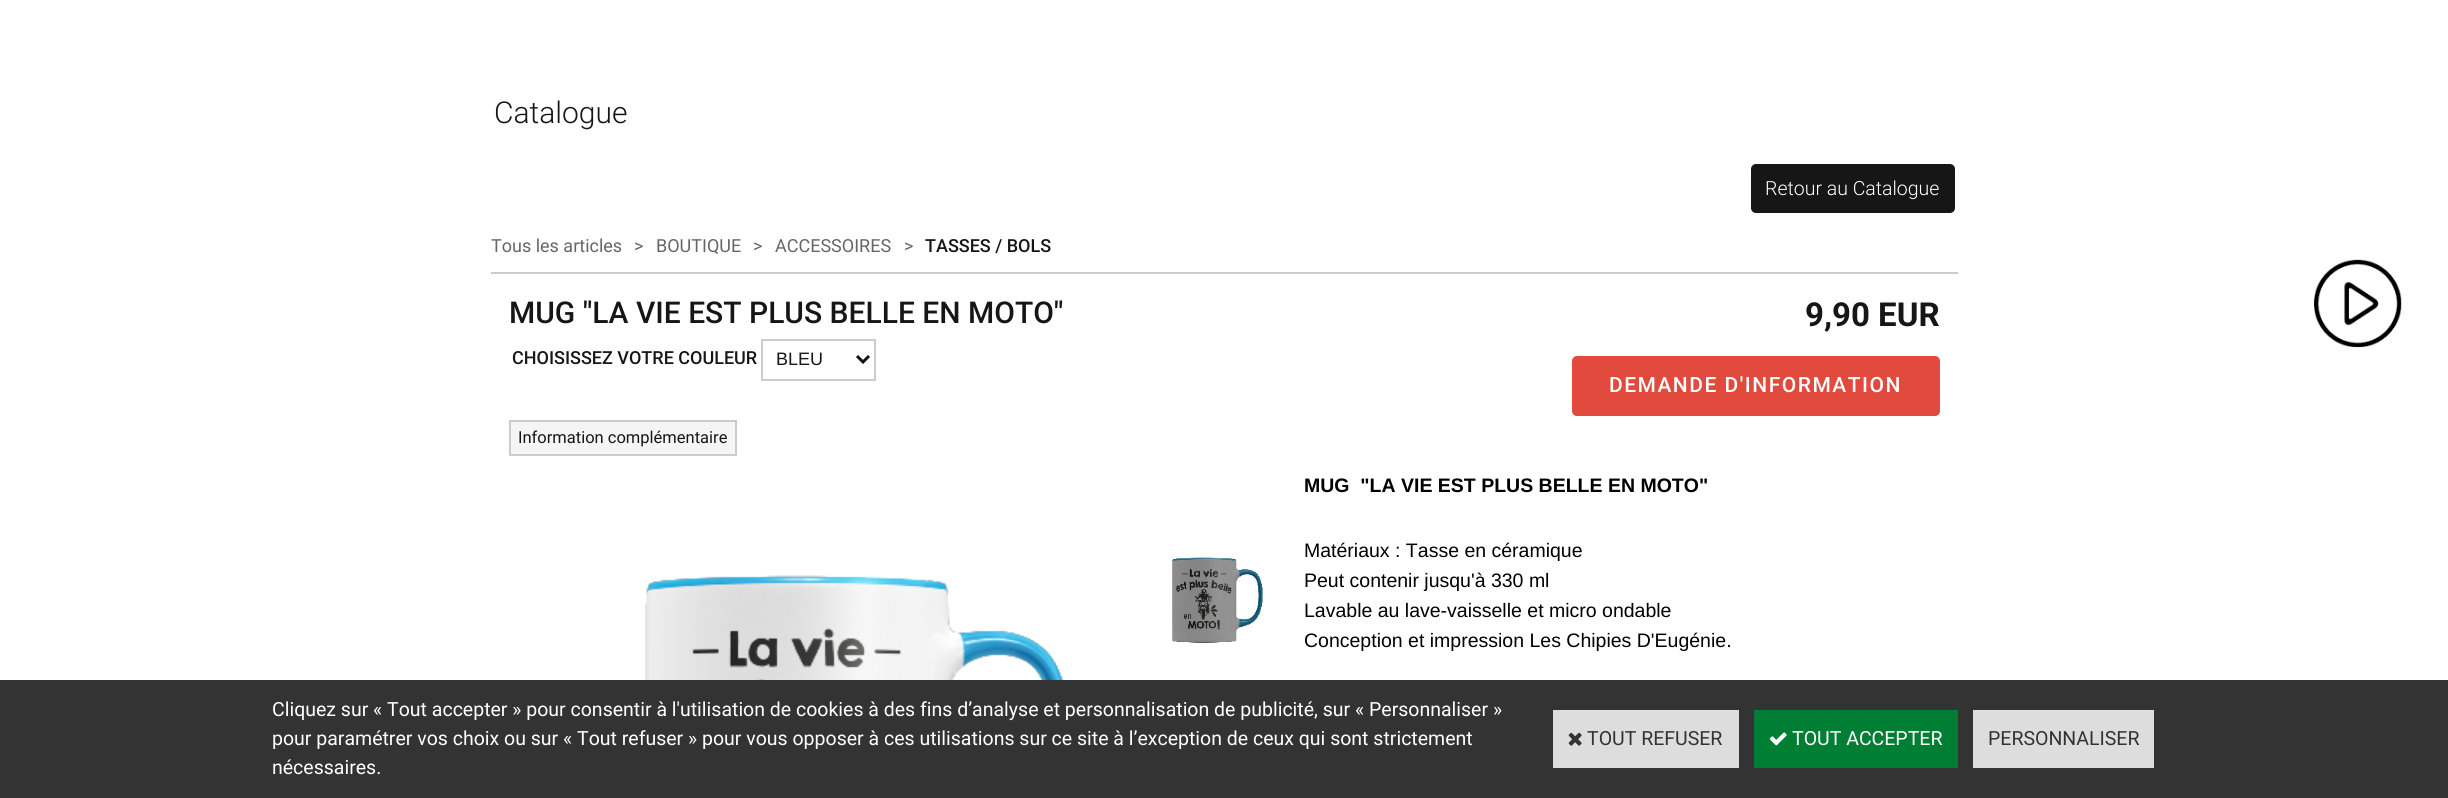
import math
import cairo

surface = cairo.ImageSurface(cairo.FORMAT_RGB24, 2448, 798)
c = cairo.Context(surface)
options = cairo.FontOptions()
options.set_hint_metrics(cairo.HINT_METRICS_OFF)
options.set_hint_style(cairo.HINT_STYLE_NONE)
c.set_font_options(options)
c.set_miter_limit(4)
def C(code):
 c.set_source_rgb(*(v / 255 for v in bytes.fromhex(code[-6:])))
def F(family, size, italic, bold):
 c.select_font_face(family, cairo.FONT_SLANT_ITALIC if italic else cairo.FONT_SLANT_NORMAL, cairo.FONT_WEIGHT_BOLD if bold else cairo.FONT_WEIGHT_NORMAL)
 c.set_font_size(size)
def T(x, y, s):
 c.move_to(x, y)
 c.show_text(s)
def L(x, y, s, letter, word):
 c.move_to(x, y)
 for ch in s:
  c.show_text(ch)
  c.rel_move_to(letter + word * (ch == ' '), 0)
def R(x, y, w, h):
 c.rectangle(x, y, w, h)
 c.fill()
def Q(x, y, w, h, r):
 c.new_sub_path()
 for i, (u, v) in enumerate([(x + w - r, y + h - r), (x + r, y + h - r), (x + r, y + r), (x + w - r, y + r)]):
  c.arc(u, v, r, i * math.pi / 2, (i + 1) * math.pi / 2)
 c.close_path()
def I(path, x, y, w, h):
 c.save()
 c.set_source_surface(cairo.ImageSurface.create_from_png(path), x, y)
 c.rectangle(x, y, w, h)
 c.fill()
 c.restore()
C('ffffff')
c.paint()
F('Roboto Light',30,0,0)
C('161616')
T(494,123,'Catalogue')
Q(1751,164,204,49,5)
c.fill()
F('Roboto Light',19.5,0,0)
C('ffffff')
T(1765,195,'Retour au Catalogue')
F('Roboto',18,0,0)
C('666666')
T(491,252,'Tous les articles')
T(634,252,'>')
T(656,252,'BOUTIQUE')
T(753,252,'>')
T(775,252,'ACCESSOIRES')
T(904,252,'>')
F('Roboto Medium',18,0,0)
C('161616')
T(925,252,'TASSES / BOLS')
C('cccccc')
R(491,272,1467,2)
F('Roboto Medium',30,0,0)
C('161616')
T(509,323,'MUG "LA VIE EST PLUS BELLE EN MOTO"')
F('Roboto Medium',18,0,0)
T(512,364,'CHOISISSEZ VOTRE COULEUR')
c.rectangle(762,340,113,40)
C('cccccc')
c.stroke()
c.new_path()
c.move_to(857,356)
c.line_to(863,362)
c.line_to(869,356)
C('161616')
c.set_line_width(3)
c.stroke()
F('Liberation Sans',18,0,0)
T(776,365,'BLEU')
C('f5f5f5')
c.rectangle(510,421,226,34)
c.fill_preserve()
C('cccccc')
c.set_line_width(2)
c.stroke()
F('Roboto',16.5,0,0)
C('161616')
T(518,443,'Information complémentaire')
F('Roboto',33,0,1)
T(1805,326,'9,90 EUR')
C('e14a3d')
Q(1572,356,368,60,5)
c.fill()
F('Roboto Medium',21,0,0)
C('ffffff')
L(1609,392,'DEMANDE D\'INFORMATION',1.5,0)
I('1.png',645,575,419,105)
I('2.png',1172,557,91,86)
F('Liberation Sans',19.5,0,1)
C('000000')
T(1304,492,'MUG  "LA VIE EST PLUS BELLE EN MOTO"')
F('Liberation Sans',19.5,0,0)
T(1304,557,'Matériaux : Tasse en céramique')
T(1304,587,'Peut contenir jusqu\'à 330 ml')
T(1304,617,'Lavable au lave-vaisselle et micro ondable')
T(1304,647,'Conception et impression Les Chipies D\'Eugénie.')
I('3.png',2313,258,90,90)
C('333333')
R(0,680,2448,118)
F('Roboto',19.5,0,0)
C('ffffff')
T(272,716,'Cliquez sur « Tout accepter » pour consentir à l\'utilisation de cookies à des fins d’analyse et personnalisation de publicité, sur « Personnaliser »')
T(272,745,'pour paramétrer vos choix ou sur « Tout refuser » pour vous opposer à ces utilisations sur ce site à l’exception de ceux qui sont strictement')
T(272,774,'nécessaires.')
C('dddddd')
R(1553,710,186,58)
I('4.png',1568,732,14,14)
C('333333')
T(1587,745,'TOUT REFUSER')
C('007e33')
R(1754,710,204,58)
I('5.png',1769,732,18,14)
C('ffffff')
T(1792,745,'TOUT ACCEPTER')
C('dddddd')
R(1973,710,181,58)
C('333333')
T(1988,745,'PERSONNALISER')
surface.write_to_png('o.png')
